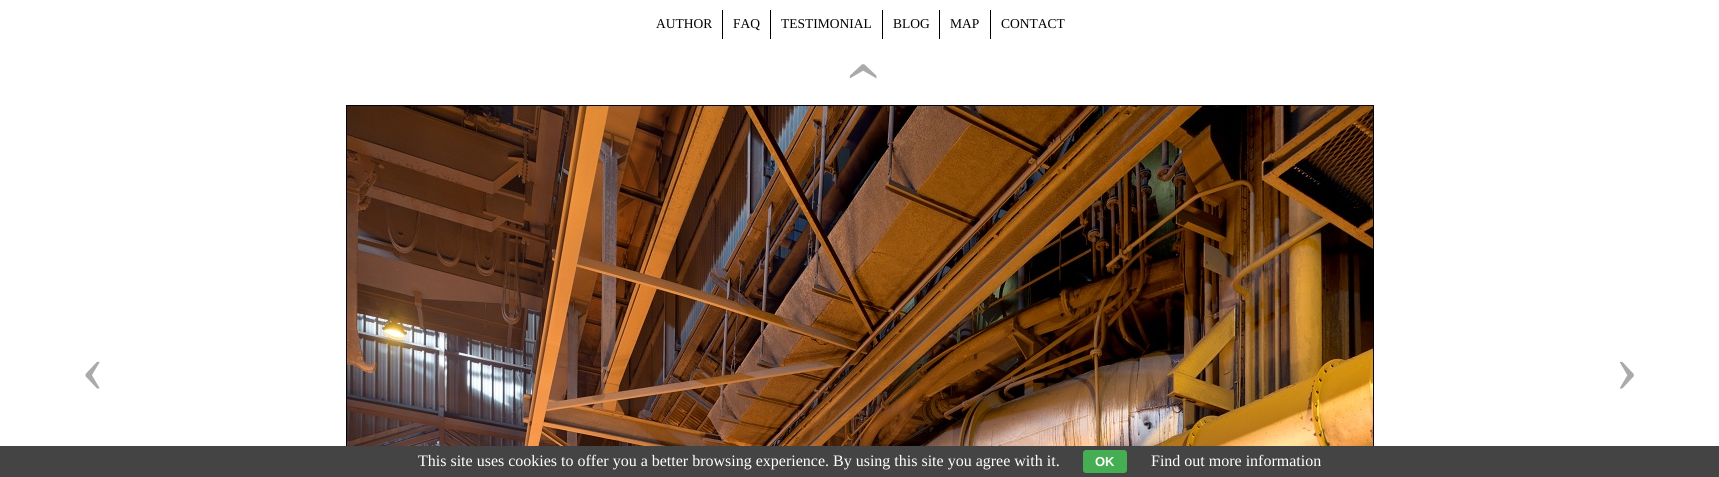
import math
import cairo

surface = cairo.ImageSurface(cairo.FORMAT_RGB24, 1719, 477)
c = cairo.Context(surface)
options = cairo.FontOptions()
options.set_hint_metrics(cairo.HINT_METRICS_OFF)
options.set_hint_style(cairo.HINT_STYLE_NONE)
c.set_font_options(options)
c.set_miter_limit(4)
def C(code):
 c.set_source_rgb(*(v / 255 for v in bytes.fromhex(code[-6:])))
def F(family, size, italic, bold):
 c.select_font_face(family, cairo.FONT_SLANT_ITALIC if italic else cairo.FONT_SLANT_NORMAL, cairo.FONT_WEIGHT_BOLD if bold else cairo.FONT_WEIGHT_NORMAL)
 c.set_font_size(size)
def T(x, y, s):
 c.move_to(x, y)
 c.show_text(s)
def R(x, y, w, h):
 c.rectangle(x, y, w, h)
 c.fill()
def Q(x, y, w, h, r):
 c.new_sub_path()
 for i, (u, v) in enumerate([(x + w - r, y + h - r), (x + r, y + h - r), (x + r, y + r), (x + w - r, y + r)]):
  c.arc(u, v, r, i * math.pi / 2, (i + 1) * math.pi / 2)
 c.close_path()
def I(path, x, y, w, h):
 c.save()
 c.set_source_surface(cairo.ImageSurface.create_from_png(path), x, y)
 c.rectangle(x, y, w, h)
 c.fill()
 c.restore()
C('ffffff')
c.paint()
C('000000')
R(722,10,1,29)
F('Liberation Serif',13.5,0,0)
T(656,28,'AUTHOR')
R(770,10,1,29)
T(733,28,'FAQ')
R(882,10,1,29)
T(781,28,'TESTIMONIAL')
R(939,10,1,29)
T(893,28,'BLOG')
R(990,10,1,29)
T(950,28,'MAP')
T(1001,28,'CONTACT')
F('Liberation Serif',70,0,0)
C('aaaaaa')
c.save()
c.translate(879,83)
c.rotate(-90 * math.pi / 180)
T(0,0,'›')
c.restore()
T(81,391,'‹')
T(1615,391,'›')
I('1.png',346,105,1028,341)
C('444444')
R(0,446,1719,31)
F('Liberation Serif',16,0,0)
C('ffffff')
T(418,466,'This site uses cookies to offer you a better browsing experience. By using this site you agree with it.')
C('45ae52')
Q(1083,450,44,23,3)
c.fill()
F('Liberation Sans',13,0,1)
C('ffffff')
T(1095,466,'OK')
F('Liberation Serif',16,0,0)
T(1151,466,'Find out more information')
surface.write_to_png('o.png')
